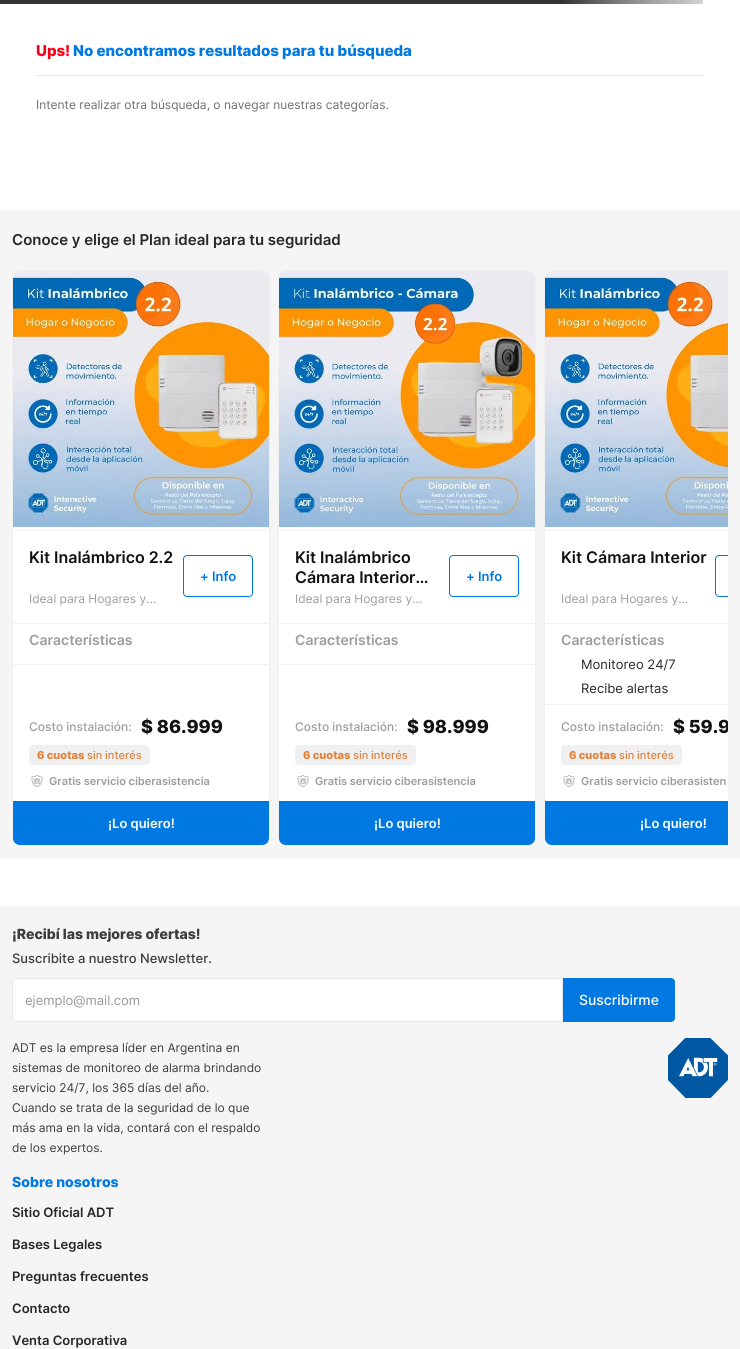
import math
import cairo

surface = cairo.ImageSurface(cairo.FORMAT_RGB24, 740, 1349)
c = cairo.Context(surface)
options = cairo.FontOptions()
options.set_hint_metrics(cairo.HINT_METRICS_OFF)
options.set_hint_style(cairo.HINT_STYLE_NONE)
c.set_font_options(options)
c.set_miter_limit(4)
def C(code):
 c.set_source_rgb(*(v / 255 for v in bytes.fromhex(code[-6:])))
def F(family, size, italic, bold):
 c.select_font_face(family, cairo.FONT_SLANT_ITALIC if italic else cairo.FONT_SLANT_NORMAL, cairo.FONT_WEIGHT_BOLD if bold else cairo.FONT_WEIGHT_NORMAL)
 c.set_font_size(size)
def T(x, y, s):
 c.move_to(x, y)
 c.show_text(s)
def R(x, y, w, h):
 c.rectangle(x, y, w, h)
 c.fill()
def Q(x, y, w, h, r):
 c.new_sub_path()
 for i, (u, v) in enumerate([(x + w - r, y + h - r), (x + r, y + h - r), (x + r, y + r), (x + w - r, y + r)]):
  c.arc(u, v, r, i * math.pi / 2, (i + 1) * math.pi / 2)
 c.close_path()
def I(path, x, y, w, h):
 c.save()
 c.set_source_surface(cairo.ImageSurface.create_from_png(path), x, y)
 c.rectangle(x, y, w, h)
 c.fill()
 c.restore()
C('ffffff')
c.paint()
gradient = cairo.LinearGradient(0,2,703,2)
gradient.add_color_stop_rgba(.8,0.204,0.204,0.196,1)
gradient.add_color_stop_rgba(.9,0.557,0.557,0.553,1)
gradient.add_color_stop_rgba(1,0.824,0.824,0.82,1)
c.set_source(gradient)
R(0,0,703,4)
C('e7e7e9')
R(36,75,668,1)
F('Inter ExtraBold',15,0,0)
C('fa0019')
T(36,56,'Ups!')
C('0078e1')
T(73,56,'No encontramos resultados para tu búsqueda')
F('Inter',12,0,0)
C('6e6e6e')
T(36,109,'Intente realizar otra búsqueda, o navegar nuestras categorías.')
C('f5f5f5')
R(0,210,740,648)
F('Inter SemiBold',15,0,0)
C('282828')
T(12,245,'Conoce y elige el Plan ideal para tu seguridad')
C('ffffff')
Q(12.5,270.5,257,575,7.5)
c.fill_preserve()
C('f0f0f0')
c.set_line_width(1)
c.stroke()
I('1.png',13,271,256,256)
R(13,530,256,1)
F('Inter SemiBold',16,0,0)
C('111111')
T(29,563,'Kit Inalámbrico 2.2')
F('Inter',12,0,0)
C('9d9d9c')
T(29,603,'Ideal para Hogares y…')
C('f0f0f0')
R(13,623,256,1)
R(13,664,256,1)
F('Inter SemiBold',14,0,0)
C('9d9d9c')
T(29,645,'Características')
F('Inter ExtraBold',18,0,0)
C('111111')
T(141,733,'$ 86.999')
C('f0f0f0')
Q(29,745,121,20,4)
c.fill()
F('Inter ExtraBold',11,0,0)
C('e0823c')
T(37,759,'6 cuotas')
F('Inter Medium',11,0,0)
T(87,759,'sin interés')
F('Inter Medium',12,0,0)
C('9d9d9c')
T(29,731,'Costo instalación:')
I('2.png',31,775,12,12)
F('Inter SemiBold',11,0,0)
T(49,785,'Gratis servicio ciberasistencia')
Q(183.5,555.5,69,41,3.5)
C('0078e1')
c.stroke()
F('Inter SemiBold',13,0,0)
T(200,581,'+ Info')
c.new_path()
c.move_to(13,801)
c.line_to(269,801)
c.line_to(269,838)
c.curve_to(269,842,266,845,262,845)
c.line_to(20,845)
c.curve_to(16,845,13,842,13,838)
c.close_path()
c.fill()
C('ffffff')
T(108,828,'¡Lo quiero!')
Q(278.5,270.5,257,575,7.5)
c.fill_preserve()
C('f0f0f0')
c.stroke()
I('3.png',279,271,256,256)
R(279,530,256,1)
F('Inter SemiBold',16,0,0)
C('111111')
T(295,563,'Kit Inalámbrico')
T(295,583,'Cámara Interior…')
F('Inter',12,0,0)
C('9d9d9c')
T(295,603,'Ideal para Hogares y…')
C('f0f0f0')
R(279,623,256,1)
R(279,664,256,1)
F('Inter SemiBold',14,0,0)
C('9d9d9c')
T(295,645,'Características')
F('Inter ExtraBold',18,0,0)
C('111111')
T(407,733,'$ 98.999')
C('f0f0f0')
Q(295,745,121,20,4)
c.fill()
F('Inter ExtraBold',11,0,0)
C('e0823c')
T(303,759,'6 cuotas')
F('Inter Medium',11,0,0)
T(353,759,'sin interés')
F('Inter Medium',12,0,0)
C('9d9d9c')
T(295,731,'Costo instalación:')
I('2.png',297,775,12,12)
F('Inter SemiBold',11,0,0)
T(315,785,'Gratis servicio ciberasistencia')
Q(449.5,555.5,69,41,3.5)
C('0078e1')
c.stroke()
F('Inter SemiBold',13,0,0)
T(466,581,'+ Info')
c.new_path()
c.move_to(279,801)
c.line_to(535,801)
c.line_to(535,838)
c.curve_to(535,842,532,845,528,845)
c.line_to(286,845)
c.curve_to(282,845,279,842,279,838)
c.close_path()
c.fill()
C('ffffff')
T(374,828,'¡Lo quiero!')
c.new_path()
c.move_to(552,270)
c.line_to(728,270)
c.line_to(728,846)
c.line_to(552,846)
c.curve_to(547.5,846,544,842.5,544,838)
c.line_to(544,278)
c.curve_to(544,273.5,547.5,270,552,270)
c.close_path()
c.fill()
c.save()
c.rectangle(12,270,716,576)
c.clip()
Q(544.5,270.5,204,575,7.5)
C('f0f0f0')
c.stroke()
c.restore()
I('4.png',545,271,183,256)
C('f0f0f0')
R(545,530,183,1)
F('Inter SemiBold',16,0,0)
C('111111')
T(561,563,'Kit Cámara Interior')
F('Inter',12,0,0)
C('9d9d9c')
T(561,603,'Ideal para Hogares y…')
C('f0f0f0')
R(545,623,183,1)
R(545,704,183,1)
F('Inter SemiBold',14,0,0)
C('9d9d9c')
T(561,645,'Características')
F('Inter',13,0,0)
C('282828')
T(581,669,'Monitoreo 24/7')
T(581,693,'Recibe alertas')
F('Inter ExtraBold',18,0,0)
C('111111')
T(673,733,'$ 59.')
c.save()
c.rectangle(12,270,716,576)
c.clip()
T(718,733,'9')
c.restore()
C('f0f0f0')
Q(561,745,121,20,4)
c.fill()
F('Inter ExtraBold',11,0,0)
C('e0823c')
T(569,759,'6 cuotas')
F('Inter Medium',11,0,0)
T(619,759,'sin interés')
F('Inter Medium',12,0,0)
C('9d9d9c')
T(561,731,'Costo instalación:')
I('2.png',563,775,12,12)
F('Inter SemiBold',11,0,0)
T(581,785,'Gratis servicio ciberasisten')
c.save()
c.rectangle(12,270,716,576)
c.clip()
Q(715.5,555.5,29,41,3.5)
C('0078e1')
c.stroke()
c.restore()
C('0078e1')
c.new_path()
c.move_to(545,801)
c.line_to(728,801)
c.line_to(728,845)
c.line_to(552,845)
c.curve_to(548,845,545,842,545,838)
c.close_path()
c.fill()
F('Inter SemiBold',13,0,0)
C('ffffff')
T(640,828,'¡Lo quiero!')
C('f5f5f5')
R(0,906,740,443)
F('Inter ExtraBold',14,0,0)
C('3c3c3c')
T(12,939,'¡Recibí las mejores ofertas!')
F('Inter Medium',13,0,0)
T(12,963,'Suscribite a nuestro Newsletter.')
C('ffffff')
c.new_path()
c.move_to(16,978.5)
c.line_to(562.5,978.5)
c.line_to(562.5,1021.5)
c.line_to(16,1021.5)
c.curve_to(14,1021.5,12.5,1020,12.5,1018)
c.line_to(12.5,982)
c.curve_to(12.5,980,14,978.5,16,978.5)
c.close_path()
c.fill_preserve()
C('e7e7e9')
c.stroke()
F('Inter',13,0,0)
C('979899')
T(25,1005,'ejemplo@mail.com')
C('0078e1')
c.new_path()
c.move_to(563,978)
c.line_to(671,978)
c.curve_to(673,978,675,980,675,982)
c.line_to(675,1018)
c.curve_to(675,1020,673,1022,671,1022)
c.line_to(563,1022)
c.close_path()
c.fill()
F('Inter Medium',14,0,0)
C('ffffff')
T(579,1005,'Suscribirme')
F('Inter',12,0,0)
C('3c3c3c')
T(12,1052,'ADT es la empresa líder en Argentina en')
T(12,1072,'sistemas de monitoreo de alarma brindando')
T(12,1092,'servicio 24/7, los 365 días del año.')
T(12,1112,'Cuando se trata de la seguridad de lo que')
T(12,1132,'más ama en la vida, contará con el respaldo')
T(12,1152,'de los expertos.')
I('5.png',668,1038,60,60)
F('Inter ExtraBold',14,0,0)
C('0078e1')
T(12,1187,'Sobre nosotros')
F('Inter SemiBold',13,0,0)
C('282828')
T(12,1217,'Sitio Oficial ADT')
T(12,1249,'Bases Legales')
T(12,1281,'Preguntas frecuentes')
T(12,1313,'Contacto')
T(12,1345,'Venta Corporativa')
surface.write_to_png('o.png')
